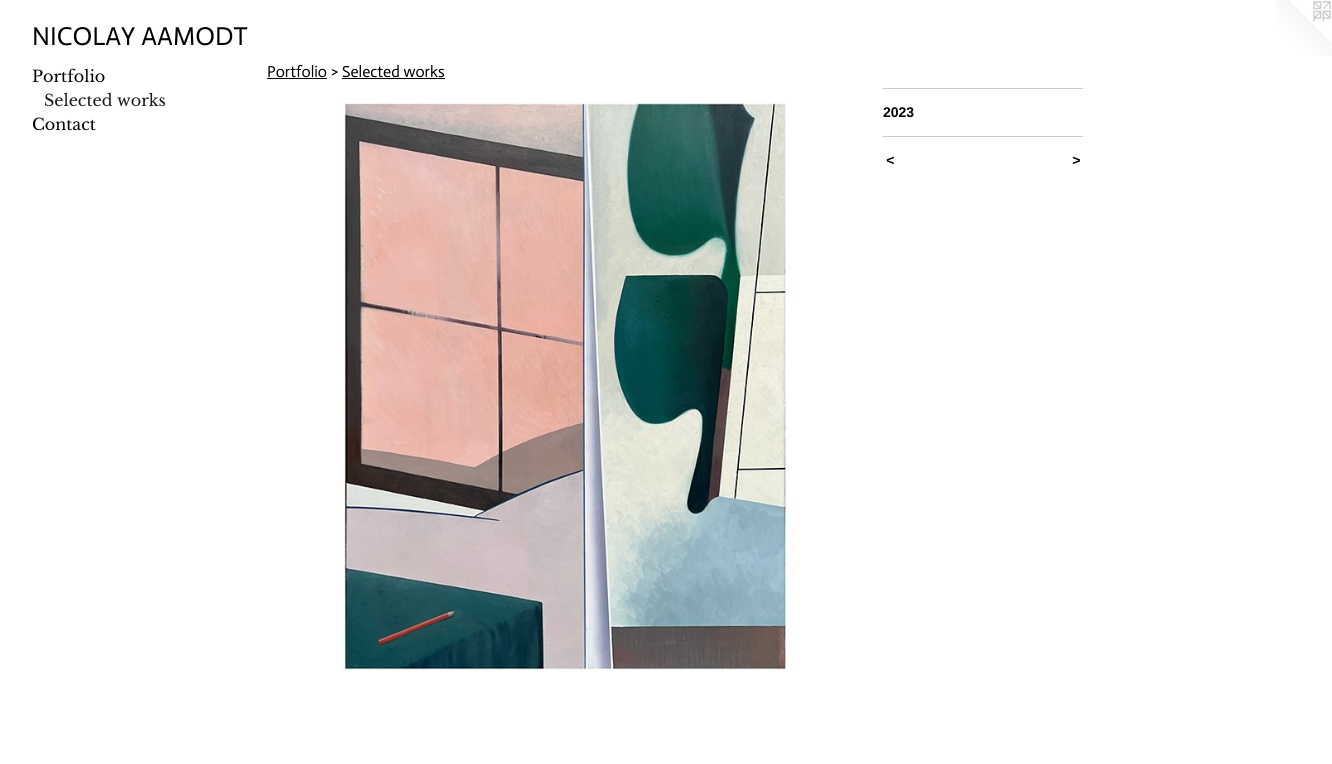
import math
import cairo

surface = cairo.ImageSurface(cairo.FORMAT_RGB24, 1332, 764)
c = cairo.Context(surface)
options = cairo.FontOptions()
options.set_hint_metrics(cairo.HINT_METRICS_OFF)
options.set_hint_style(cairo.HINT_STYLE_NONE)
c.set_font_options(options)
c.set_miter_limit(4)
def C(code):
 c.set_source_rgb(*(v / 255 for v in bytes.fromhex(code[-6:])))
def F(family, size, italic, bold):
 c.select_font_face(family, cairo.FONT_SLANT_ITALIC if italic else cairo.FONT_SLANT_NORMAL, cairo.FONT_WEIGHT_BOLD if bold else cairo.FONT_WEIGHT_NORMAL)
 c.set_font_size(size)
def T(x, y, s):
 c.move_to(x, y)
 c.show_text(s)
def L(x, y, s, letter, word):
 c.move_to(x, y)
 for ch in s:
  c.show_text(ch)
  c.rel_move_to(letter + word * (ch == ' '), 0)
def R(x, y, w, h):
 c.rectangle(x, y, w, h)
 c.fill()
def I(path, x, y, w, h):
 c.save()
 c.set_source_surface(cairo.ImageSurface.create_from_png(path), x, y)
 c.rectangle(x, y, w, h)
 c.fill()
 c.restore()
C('ffffff')
c.paint()
F('Actor',26,0,0)
C('000000')
T(32,45,'NICOLAY AAMODT')
I('1.png',1276,0,56,56)
F('Libre Baskerville',16,0,0)
T(32,82,'Portfolio')
C('1a1a1a')
T(44,106,'Selected works')
C('000000')
T(32,130,'Contact')
F('Actor',16,0,0)
T(267,77,'Portfolio > Selected works')
R(267,78,60,1)
R(342,78,103,1)
I('2.png',339,101,455,570)
C('cccccc')
R(883,88,200,1)
F('Liberation Sans',14,0,1)
C('000000')
T(883,117,'2023')
C('cccccc')
R(883,136,200,1)
F('Liberation Sans',14,1,1)
C('000000')
L(886,165,'<',1,0)
L(1072,165,'>',1,0)
surface.write_to_png('o.png')
